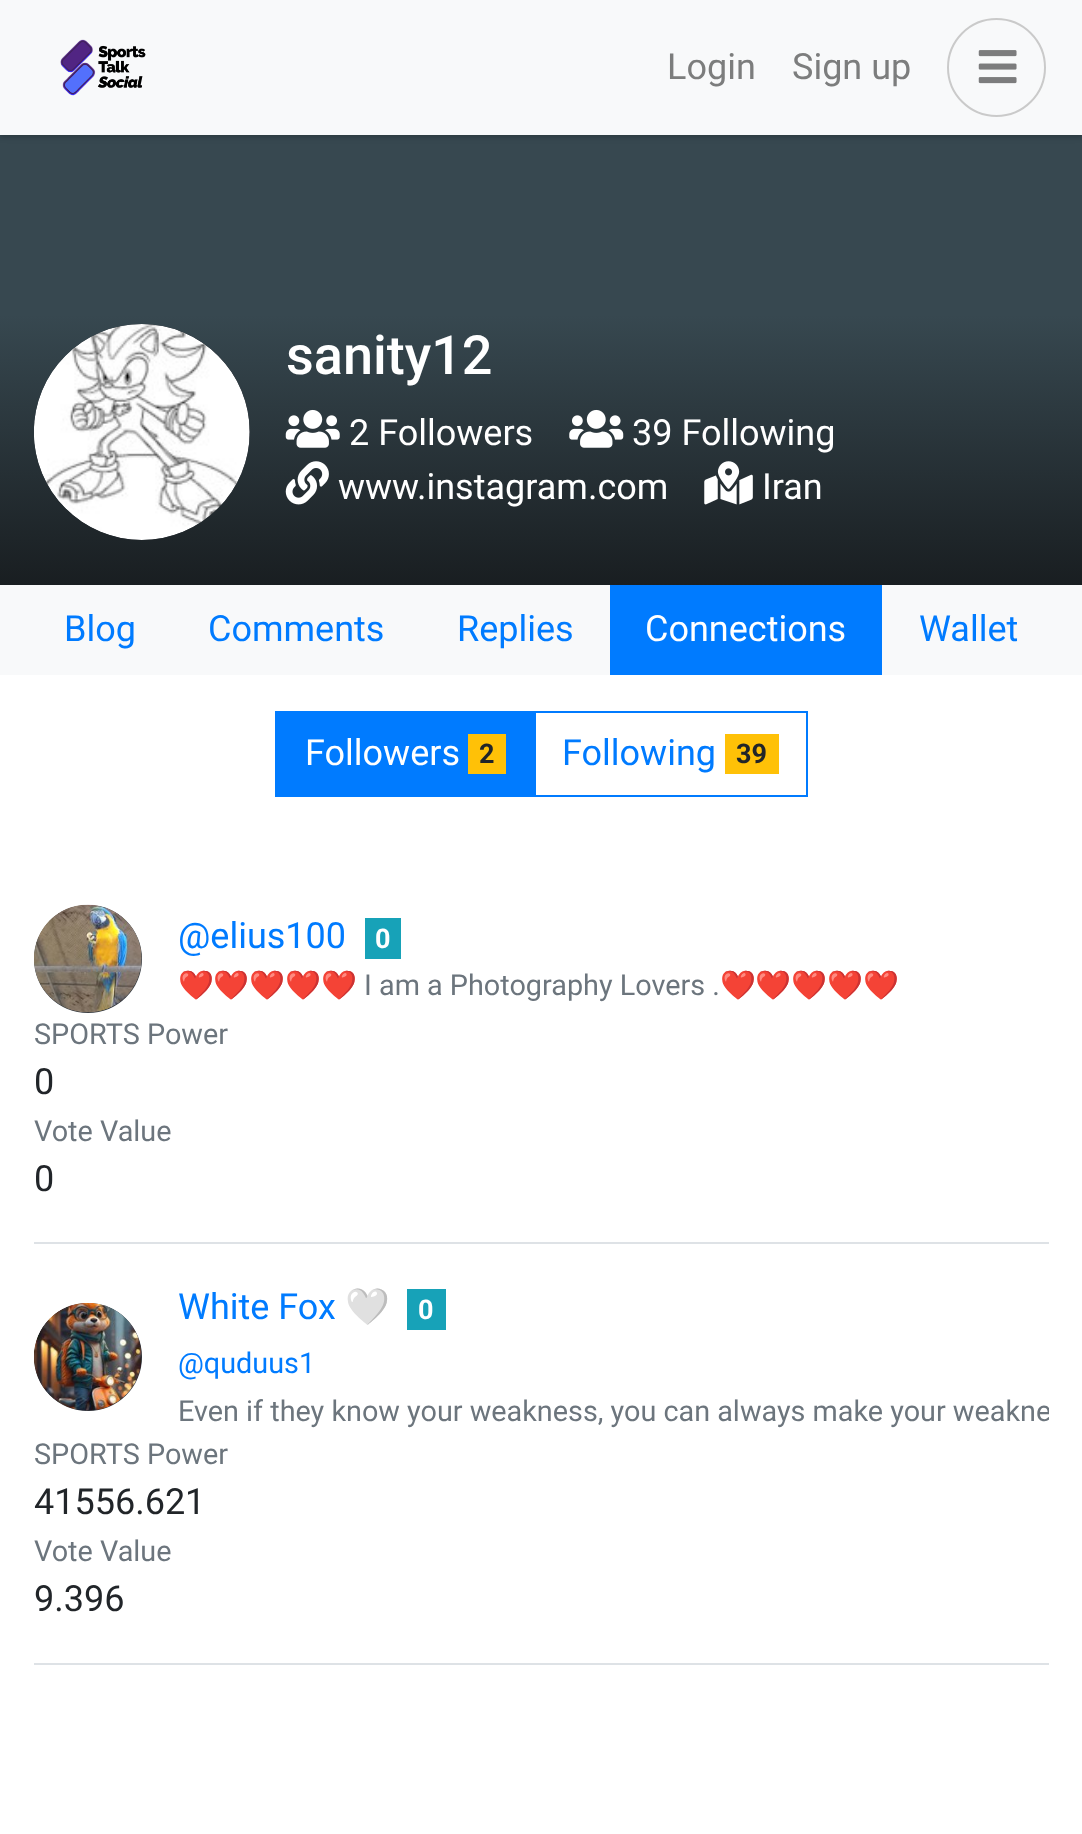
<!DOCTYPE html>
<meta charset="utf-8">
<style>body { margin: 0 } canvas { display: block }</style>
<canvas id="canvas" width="1082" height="1834"></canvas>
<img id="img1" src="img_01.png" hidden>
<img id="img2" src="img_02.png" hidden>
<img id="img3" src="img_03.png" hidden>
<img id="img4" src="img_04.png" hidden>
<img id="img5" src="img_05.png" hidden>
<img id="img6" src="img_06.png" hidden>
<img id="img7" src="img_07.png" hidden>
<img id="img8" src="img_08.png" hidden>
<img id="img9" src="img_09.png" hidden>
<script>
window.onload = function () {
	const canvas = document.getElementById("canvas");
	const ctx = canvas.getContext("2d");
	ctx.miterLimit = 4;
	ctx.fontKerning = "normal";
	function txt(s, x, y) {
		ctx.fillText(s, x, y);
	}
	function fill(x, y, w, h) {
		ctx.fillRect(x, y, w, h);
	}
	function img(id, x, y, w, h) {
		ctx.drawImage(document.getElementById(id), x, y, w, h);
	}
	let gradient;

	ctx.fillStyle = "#FFFFFF";
	fill(0, 0, 1082, 1834);
	gradient = ctx.createLinearGradient(541, 135, 541, 585);
	gradient.addColorStop(0, "#374850");
	gradient.addColorStop(0.4, "#374850");
	gradient.addColorStop(1, "#191E21");
	ctx.fillStyle = gradient;
	fill(0, 135, 1082, 450);
	ctx.fillStyle = "rgba(0, 0, 0, 0.14)";
	ctx.filter = "blur(2px)";
	ctx.beginPath();
	ctx.rect(0, 2, 1082, 135);
	ctx.fill();
	ctx.filter = "none";
	ctx.fillStyle = "rgba(0, 0, 0, 0.07)";
	ctx.filter = "blur(3.5px)";
	ctx.beginPath();
	ctx.rect(0, 2, 1082, 135);
	ctx.fill();
	ctx.filter = "none";
	ctx.fillStyle = "#F8F9FA";
	fill(0, 0, 1082, 135);
	img("img1", 60, 39, 86, 57);
	ctx.beginPath();
	ctx.arc(996.5, 67.5, 48.5, 0, Math.PI * 2);
	ctx.strokeStyle = "#CACACA";
	ctx.lineWidth = 2;
	ctx.stroke();
	img("img2", 978, 50, 39, 34);
	ctx.fillStyle = "#343A40";
	ctx.beginPath();
	ctx.arc(142, 432, 108, 0, Math.PI * 2);
	ctx.fill();
	img("img3", 34, 324, 216, 216);
	img("img4", 285, 409, 55, 39);
	img("img5", 569, 409, 55, 39);
	img("img6", 285, 461, 44, 44);
	img("img7", 704, 461, 49, 44);
	ctx.fillStyle = "#F8F9FA";
	fill(0, 585, 1082, 90);
	ctx.fillStyle = "#007BFF";
	fill(610, 585, 272, 90);
	ctx.strokeStyle = "#007BFF";
	ctx.strokeRect(534, 712, 273, 84);
	fill(275, 711, 261, 86);
	ctx.fillStyle = "#FFC107";
	fill(468, 734, 38, 40);
	fill(725, 734, 54, 40);
	ctx.fillStyle = "#DEE2E6";
	fill(34, 1242, 1015, 2);
	ctx.fillStyle = "#343A40";
	ctx.beginPath();
	ctx.arc(88, 959, 54, 0, Math.PI * 2);
	ctx.fill();
	img("img8", 34, 904, 108, 109);
	ctx.fillStyle = "#17A2B8";
	fill(365, 918, 36, 41);
	ctx.fillStyle = "#DEE2E6";
	fill(34, 1663, 1015, 2);
	ctx.fillStyle = "#343A40";
	ctx.beginPath();
	ctx.arc(88, 1357, 54, 0, Math.PI * 2);
	ctx.fill();
	img("img9", 34, 1303, 108, 108);
	ctx.fillStyle = "#17A2B8";
	fill(407, 1289, 39, 41);
	ctx.font = "36px Roboto";
	ctx.fillStyle = "#7C7D7D";
	txt("Login", 667, 79);
	txt("Sign up", 792, 79);
	ctx.font = "500 54px Roboto";
	ctx.fillStyle = "#FFFFFF";
	txt("sanity12", 286, 374);
	ctx.font = "36px Roboto";
	txt("2 Followers", 349, 445);
	txt("39 Following", 632, 445);
	txt("www.instagram.com", 338, 499);
	txt("Iran", 762, 499);
	ctx.fillStyle = "#007BFF";
	txt("Blog", 64, 641);
	txt("Comments", 208, 641);
	txt("Replies", 457, 641);
	ctx.fillStyle = "#FFFFFF";
	txt("Connections", 645, 641);
	ctx.fillStyle = "#007BFF";
	txt("Wallet", 919, 641);
	ctx.fillStyle = "#FFFFFF";
	txt("Followers", 305, 765);
	ctx.font = "bold 27px Roboto";
	ctx.fillStyle = "#212529";
	txt("2", 479, 763);
	ctx.font = "36px Roboto";
	ctx.fillStyle = "#007BFF";
	txt("Following", 562, 765);
	ctx.font = "bold 27px Roboto";
	ctx.fillStyle = "#212529";
	txt("39", 736, 763);
	ctx.font = "36px Roboto";
	ctx.fillStyle = "#007BFF";
	txt("@elius100", 178, 948);
	ctx.font = "bold 27px Roboto";
	ctx.fillStyle = "#FFFFFF";
	txt("0", 375, 948);
	ctx.save();
	ctx.beginPath();
	ctx.rect(178, 909, 722, 99);
	ctx.clip();
	ctx.font = "28.8px Noto Color Emoji";
	ctx.fillStyle = "#6C757D";
	txt("❤❤❤❤❤", 178, 995);
	ctx.restore();
	ctx.font = "28.8px Roboto";
	ctx.fillStyle = "#6C757D";
	txt("I am a Photography Lovers .", 364, 995);
	ctx.font = "28.8px Noto Color Emoji";
	txt("❤❤❤❤❤", 720, 995);
	ctx.font = "28.8px Roboto";
	txt("SPORTS Power", 34, 1044);
	ctx.font = "36px Roboto";
	ctx.fillStyle = "#212529";
	txt("0", 34, 1094);
	ctx.font = "28.8px Roboto";
	ctx.fillStyle = "#6C757D";
	txt("Vote Value", 34, 1141);
	ctx.font = "36px Roboto";
	ctx.fillStyle = "#212529";
	txt("0", 34, 1191);
	ctx.fillStyle = "#007BFF";
	txt("White Fox", 178, 1319);
	ctx.font = "36px Noto Color Emoji";
	txt("🤍", 345, 1319);
	ctx.font = "28.8px Roboto";
	txt("@quduus1", 178, 1373);
	ctx.font = "bold 27px Roboto";
	ctx.fillStyle = "#FFFFFF";
	txt("0", 418, 1319);
	ctx.save();
	ctx.beginPath();
	ctx.rect(178, 1280, 871, 153);
	ctx.clip();
	ctx.font = "28.8px Roboto";
	ctx.fillStyle = "#6C757D";
	txt("Even if they know your weakness, you can always make your weakne", 178, 1421);
	ctx.restore();
	ctx.font = "28.8px Roboto";
	ctx.fillStyle = "#6C757D";
	txt("SPORTS Power", 34, 1464);
	ctx.font = "36px Roboto";
	ctx.fillStyle = "#212529";
	txt("41556.621", 34, 1514);
	ctx.font = "28.8px Roboto";
	ctx.fillStyle = "#6C757D";
	txt("Vote Value", 34, 1561);
	ctx.font = "36px Roboto";
	ctx.fillStyle = "#212529";
	txt("9.396", 34, 1611);
};
</script>
